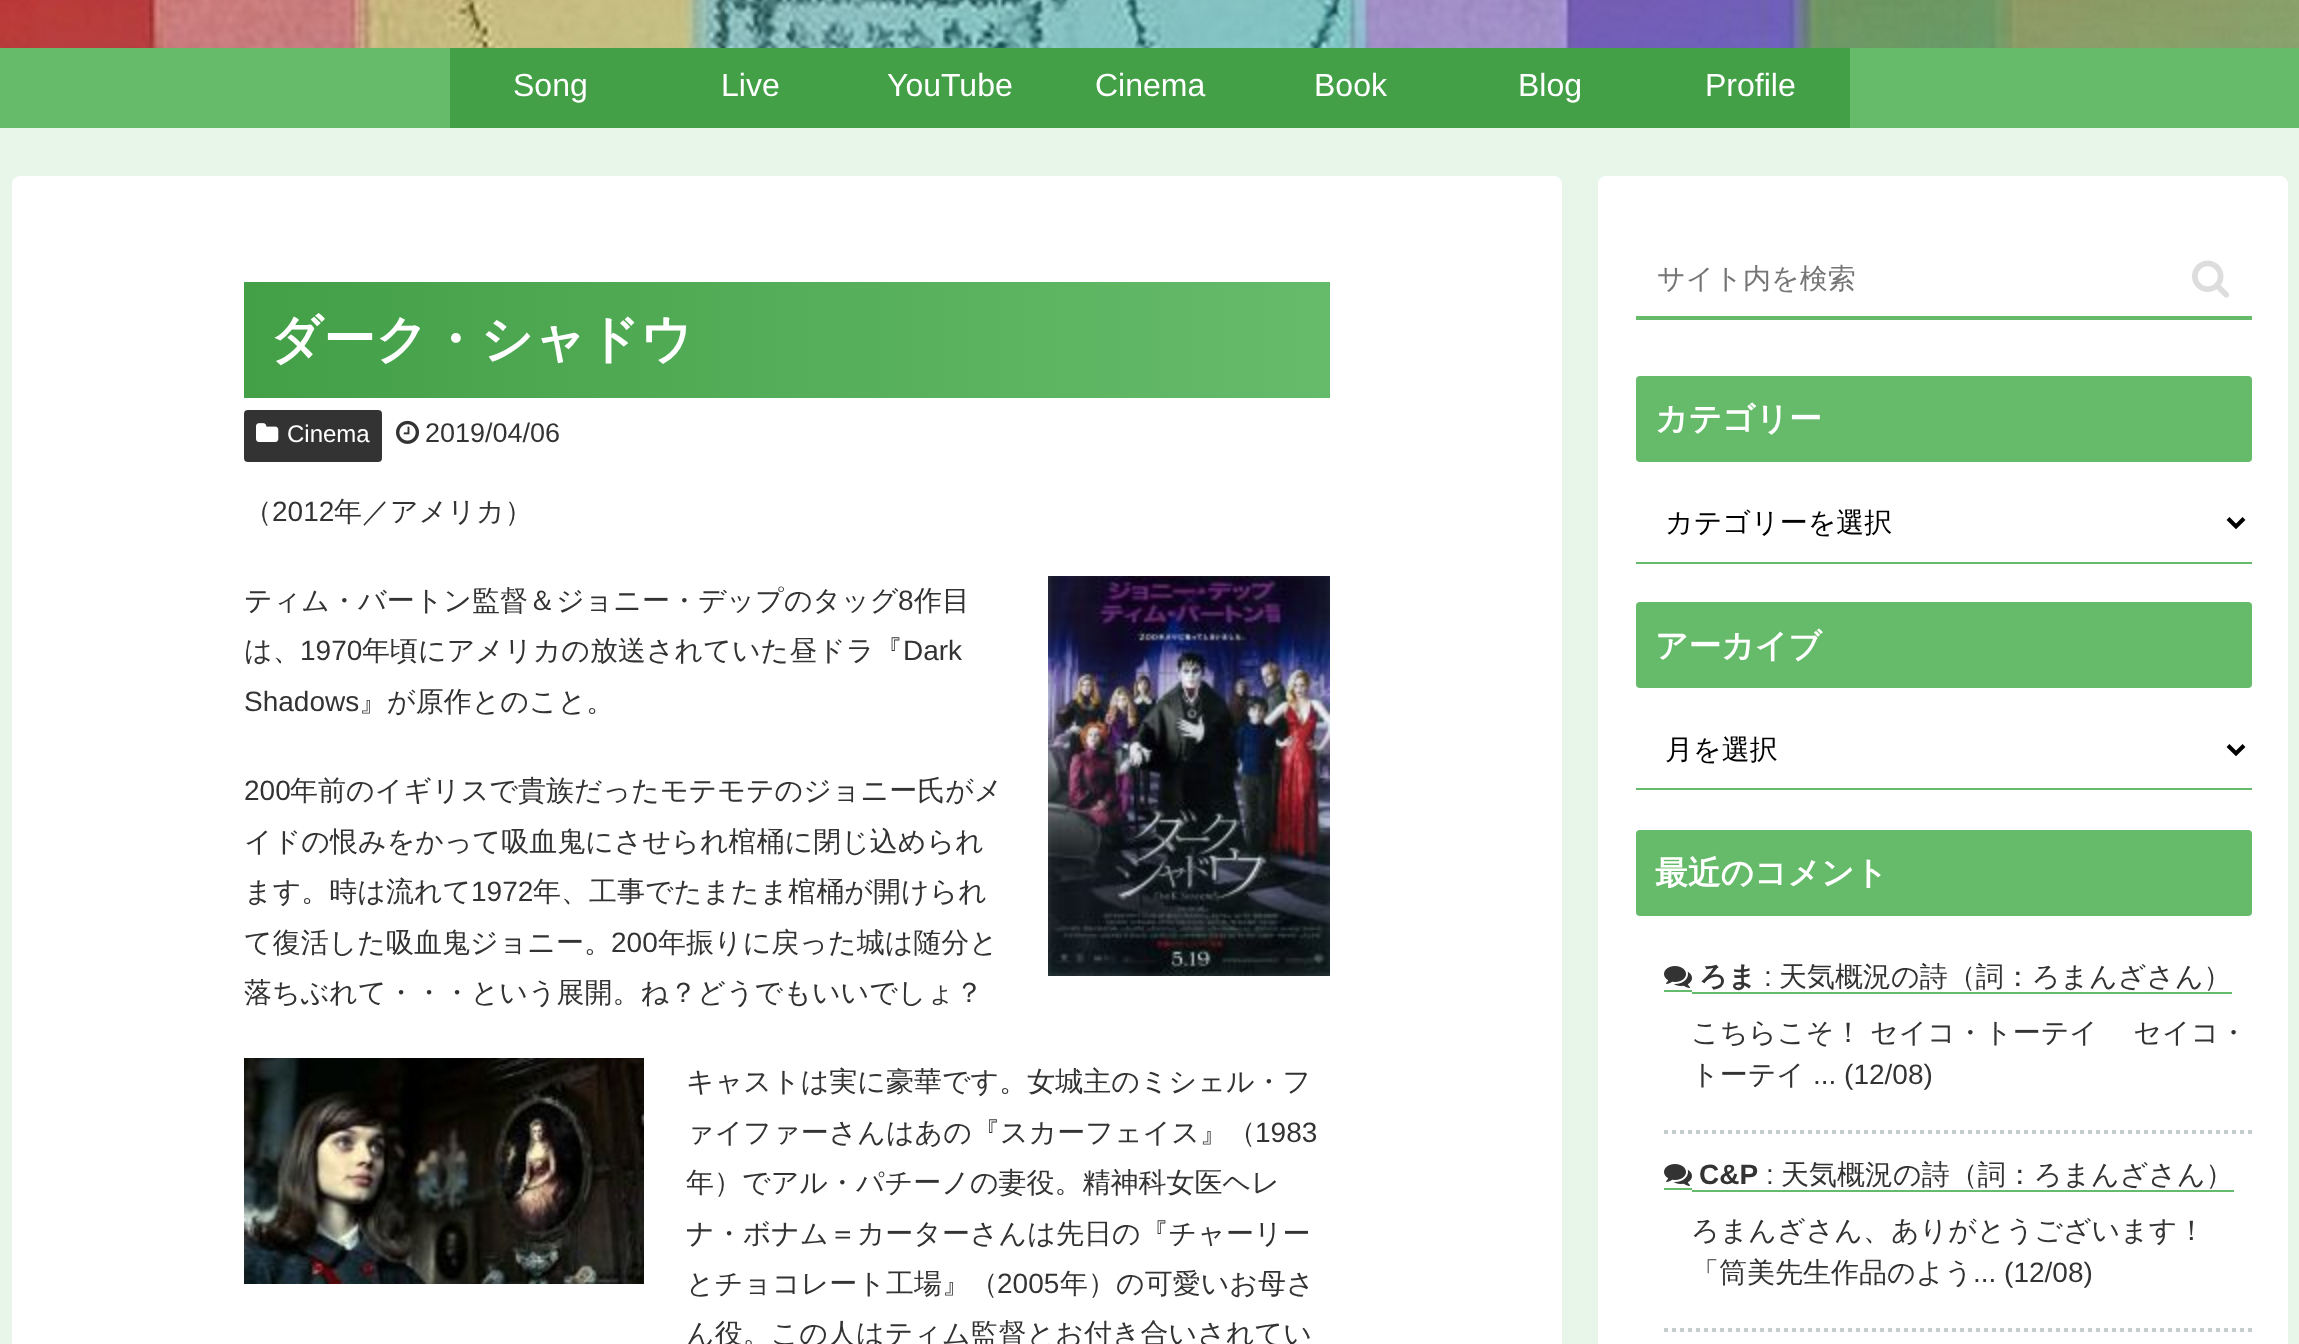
<!DOCTYPE html>
<meta charset="utf-8">
<style>body { margin: 0 } canvas { display: block }</style>
<canvas id="canvas" width="2299" height="1344"></canvas>
<img id="img1" src="img_01.png" hidden>
<img id="img2" src="img_02.png" hidden>
<img id="img3" src="img_03.png" hidden>
<img id="img4" src="img_04.png" hidden>
<img id="img5" src="img_05.png" hidden>
<img id="img6" src="img_06.png" hidden>
<img id="img7" src="img_07.png" hidden>
<script>
window.onload = function () {
	const canvas = document.getElementById("canvas");
	const ctx = canvas.getContext("2d");
	ctx.miterLimit = 4;
	ctx.fontKerning = "normal";
	function txt(s, x, y) {
		ctx.fillText(s, x, y);
	}
	function fill(x, y, w, h) {
		ctx.fillRect(x, y, w, h);
	}
	function round(x, y, w, h, r) {
		ctx.beginPath();
		ctx.roundRect(x, y, w, h, r);
		ctx.fill();
	}
	function img(id, x, y, w, h) {
		ctx.drawImage(document.getElementById(id), x, y, w, h);
	}
	let gradient;

	ctx.fillStyle = "#E8F5E9";
	fill(0, 0, 2299, 1344);
	ctx.fillStyle = "#66BB6A";
	fill(0, 48, 2299, 80);
	img("img1", 0, 0, 2299, 48);
	ctx.fillStyle = "#43A047";
	fill(450, 48, 1400, 80);
	ctx.fillStyle = "#FFFFFF";
	round(12, 176, 1550, 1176, 8);
	gradient = ctx.createLinearGradient(244, 340, 1330, 340);
	gradient.addColorStop(0, "#43A047");
	gradient.addColorStop(1, "#66BB6A");
	ctx.fillStyle = gradient;
	fill(244, 282, 1086, 116);
	ctx.fillStyle = "#333333";
	round(244, 410, 138, 52, 4);
	img("img2", 256, 423, 23, 19);
	img("img3", 396, 420, 23, 24);
	img("img4", 1048, 576, 282, 400);
	img("img5", 244, 1058, 400, 226);
	ctx.fillStyle = "#FFFFFF";
	round(1598, 176, 690, 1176, 8);
	ctx.fillStyle = "#66BB6A";
	fill(1636, 316, 616, 4);
	img("img6", 2192, 260, 37, 38);
	round(1636, 376, 616, 86, 4);
	fill(1636, 562, 616, 2);
	ctx.beginPath();
	ctx.moveTo(2228, 518.5);
	ctx.lineTo(2236, 526.5);
	ctx.lineTo(2244, 518.5);
	ctx.strokeStyle = "#000000";
	ctx.lineWidth = 4;
	ctx.stroke();
	round(1636, 602, 616, 86, 4);
	fill(1636, 788, 616, 2);
	ctx.beginPath();
	ctx.moveTo(2228, 745.5);
	ctx.lineTo(2236, 753.5);
	ctx.lineTo(2244, 745.5);
	ctx.stroke();
	round(1636, 830, 616, 86, 4);
	ctx.beginPath();
	ctx.moveTo(1664, 1132);
	ctx.lineTo(2252, 1132);
	ctx.strokeStyle = "#C3CDCE";
	ctx.setLineDash([4, 4]);
	ctx.stroke();
	fill(1664, 990, 28, 2);
	fill(1692, 992, 540, 2);
	img("img7", 1664, 966, 28, 22);
	ctx.beginPath();
	ctx.moveTo(1664, 1330);
	ctx.lineTo(2252, 1330);
	ctx.stroke();
	fill(1664, 1188, 28, 2);
	fill(1692, 1190, 542, 2);
	img("img7", 1664, 1164, 28, 22);
	ctx.font = "32px Liberation Sans";
	ctx.fillStyle = "#FFFFFF";
	txt("Song", 513, 96);
	txt("Live", 721, 96);
	txt("YouTube", 887, 96);
	txt("Cinema", 1095, 96);
	txt("Book", 1314, 96);
	txt("Blog", 1518, 96);
	txt("Profile", 1705, 96);
	ctx.font = "bold 52px WenQuanYi Zen Hei";
	txt("ダーク・シャドウ", 270, 357);
	ctx.font = "24px Liberation Sans";
	txt("Cinema", 287, 442);
	ctx.font = "27px Liberation Sans";
	ctx.fillStyle = "#333333";
	txt("2019/04/06", 425, 442);
	ctx.font = "500 28px WenQuanYi Zen Hei";
	txt("（", 244, 521);
	ctx.font = "28px Liberation Sans";
	txt("2012", 272, 521);
	ctx.font = "500 28px WenQuanYi Zen Hei";
	txt("年／アメリカ）", 334, 521);
	txt("ティム・バートン監督＆ジョニー・デップのタッグ", 244, 610);
	ctx.font = "28px Liberation Sans";
	txt("8", 898, 610);
	ctx.font = "500 28px WenQuanYi Zen Hei";
	txt("作目", 914, 610);
	txt("は、", 244, 660);
	ctx.font = "28px Liberation Sans";
	txt("1970", 300, 660);
	ctx.font = "500 28px WenQuanYi Zen Hei";
	txt("年頃にアメリカの放送されていた昼ドラ『", 362, 660);
	ctx.font = "28px Liberation Sans";
	txt("Dark", 903, 660);
	txt("Shadows", 244, 711);
	ctx.font = "500 28px WenQuanYi Zen Hei";
	txt("』が原作とのこと。", 359, 711);
	ctx.font = "28px Liberation Sans";
	txt("200", 244, 800);
	ctx.font = "500 28px WenQuanYi Zen Hei";
	txt("年前のイギリスで貴族だったモテモテのジョニー氏がメ", 290, 800);
	txt("イドの恨みをかって吸血鬼にさせられ棺桶に閉じ込められ", 244, 851);
	txt("ます。時は流れて", 244, 901);
	ctx.font = "28px Liberation Sans";
	txt("1972", 471, 901);
	ctx.font = "500 28px WenQuanYi Zen Hei";
	txt("年、工事でたまたま棺桶が開けられ", 533, 901);
	txt("て復活した吸血鬼ジョニー。", 244, 952);
	ctx.font = "28px Liberation Sans";
	txt("200", 611, 952);
	ctx.font = "500 28px WenQuanYi Zen Hei";
	txt("年振りに戻った城は随分と", 658, 952);
	txt("落ちぶれて・・・という展開。ね？どうでもいいでしょ？", 244, 1002);
	txt("キャストは実に豪華です。女城主のミシェル・フ", 686, 1091);
	txt("ァイファーさんはあの『スカーフェイス』（", 686, 1142);
	ctx.font = "28px Liberation Sans";
	txt("1983", 1255, 1142);
	ctx.font = "500 28px WenQuanYi Zen Hei";
	txt("年）でアル・パチーノの妻役。精神科女医ヘレ", 686, 1192);
	txt("ナ・ボナム＝カーターさんは先日の『チャーリー", 686, 1243);
	txt("とチョコレート工場』（", 686, 1293);
	ctx.font = "28px Liberation Sans";
	txt("2005", 997, 1293);
	ctx.font = "500 28px WenQuanYi Zen Hei";
	txt("年）の可愛いお母さ", 1060, 1293);
	txt("ん役。この人はティム監督とお付き合いされてい", 686, 1343);
	ctx.fillStyle = "#757575";
	txt("サイト内を検索", 1657, 288);
	ctx.font = "bold 32.75px WenQuanYi Zen Hei";
	ctx.fillStyle = "#FFFFFF";
	txt("カテゴリー", 1655, 430);
	ctx.font = "500 28px WenQuanYi Zen Hei";
	ctx.fillStyle = "#000000";
	txt("カテゴリーを選択", 1665, 532);
	ctx.font = "bold 32.75px WenQuanYi Zen Hei";
	ctx.fillStyle = "#FFFFFF";
	txt("アーカイブ", 1655, 657);
	ctx.font = "500 28px WenQuanYi Zen Hei";
	ctx.fillStyle = "#000000";
	txt("月を選択", 1665, 759);
	ctx.font = "bold 32.75px WenQuanYi Zen Hei";
	ctx.fillStyle = "#FFFFFF";
	txt("最近のコメント", 1655, 884);
	ctx.font = "bold 28px WenQuanYi Zen Hei";
	ctx.fillStyle = "#333333";
	txt("ろま", 1699, 986);
	ctx.font = "28px Liberation Sans";
	txt(":", 1764, 986);
	ctx.font = "500 28px WenQuanYi Zen Hei";
	txt("天気概況の詩（詞：ろまんざさん）", 1779, 986);
	txt("こちらこそ！", 1691, 1042);
	ctx.wordSpacing = "-1px";
	txt("セイコ・トーテイ 　セイコ・", 1870, 1042);
	ctx.wordSpacing = "0px";
	txt("トーテイ", 1691, 1084);
	ctx.font = "28px Liberation Sans";
	txt("... (12/08)", 1813, 1084);
	ctx.font = "bold 28px Liberation Sans";
	txt("C&P", 1699, 1184);
	ctx.font = "28px Liberation Sans";
	txt(":", 1766, 1184);
	ctx.font = "500 28px WenQuanYi Zen Hei";
	txt("天気概況の詩（詞：ろまんざさん）", 1781, 1184);
	txt("ろまんざさん、ありがとうございます！", 1691, 1240);
	txt("「筒美先生作品のよう", 1691, 1282);
	ctx.font = "28px Liberation Sans";
	txt("... (12/08)", 1973, 1282);
};
</script>
